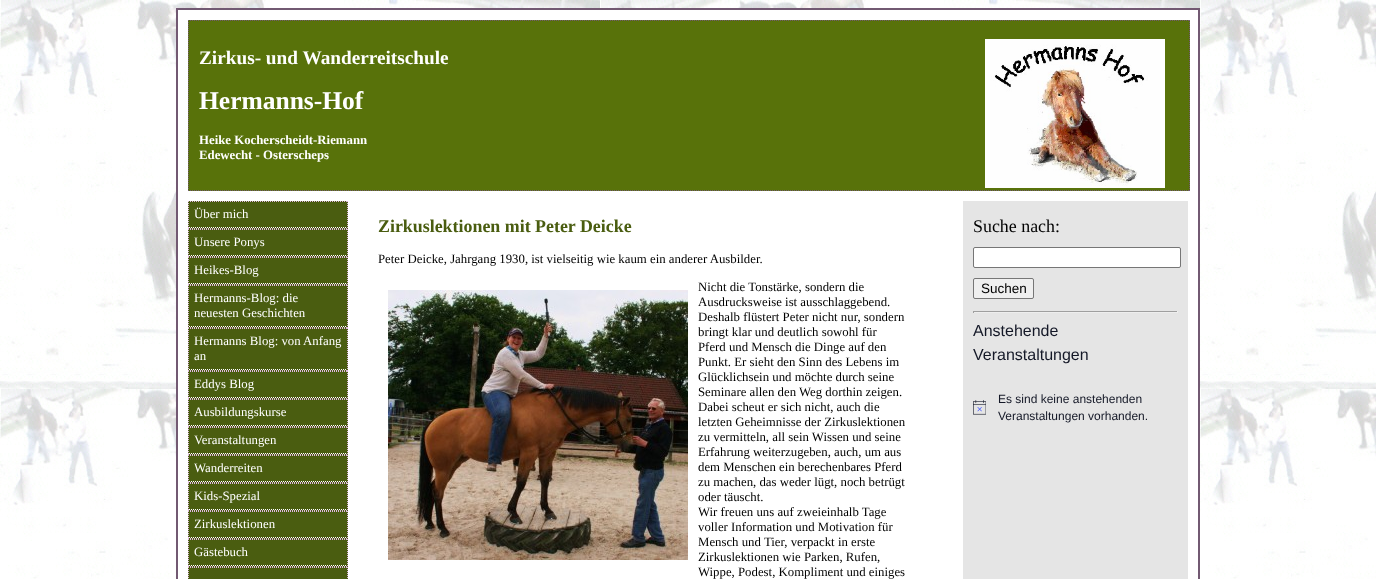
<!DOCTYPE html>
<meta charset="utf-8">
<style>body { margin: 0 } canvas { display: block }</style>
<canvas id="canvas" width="1376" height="579"></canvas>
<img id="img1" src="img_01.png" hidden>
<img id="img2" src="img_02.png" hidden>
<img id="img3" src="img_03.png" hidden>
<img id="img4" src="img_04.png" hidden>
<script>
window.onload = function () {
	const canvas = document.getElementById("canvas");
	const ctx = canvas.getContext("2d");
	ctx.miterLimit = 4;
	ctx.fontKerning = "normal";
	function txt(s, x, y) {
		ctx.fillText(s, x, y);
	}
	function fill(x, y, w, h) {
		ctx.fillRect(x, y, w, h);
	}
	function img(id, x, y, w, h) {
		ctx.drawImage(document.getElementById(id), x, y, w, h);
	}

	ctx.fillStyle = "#FFFFFF";
	fill(0, 0, 1376, 579);
	img("img1", 0, 0, 1376, 579);
	ctx.beginPath();
	ctx.rect(177, 9, 1022, 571);
	ctx.fill();
	ctx.strokeStyle = "#725972";
	ctx.lineWidth = 2;
	ctx.stroke();
	ctx.fillStyle = "#58720A";
	fill(188, 20, 1002, 171);
	ctx.beginPath();
	ctx.moveTo(188, 20.5);
	ctx.lineTo(1190, 20.5);
	ctx.lineWidth = 1;
	ctx.setLineDash([1, 1]);
	ctx.stroke();
	ctx.beginPath();
	ctx.moveTo(1189.5, 20);
	ctx.lineTo(1189.5, 191);
	ctx.stroke();
	ctx.beginPath();
	ctx.moveTo(188, 190.5);
	ctx.lineTo(1190, 190.5);
	ctx.stroke();
	ctx.beginPath();
	ctx.moveTo(188.5, 20);
	ctx.lineTo(188.5, 191);
	ctx.stroke();
	img("img2", 985, 39, 180, 149);
	ctx.fillStyle = "#4A5D10";
	fill(188, 201, 160, 378);
	ctx.beginPath();
	ctx.moveTo(188, 201.5);
	ctx.lineTo(348, 201.5);
	ctx.strokeStyle = "#DFB8DF";
	ctx.stroke();
	ctx.beginPath();
	ctx.moveTo(347.5, 201);
	ctx.lineTo(347.5, 229);
	ctx.stroke();
	ctx.beginPath();
	ctx.moveTo(188, 228.5);
	ctx.lineTo(348, 228.5);
	ctx.stroke();
	ctx.beginPath();
	ctx.moveTo(188.5, 201);
	ctx.lineTo(188.5, 229);
	ctx.stroke();
	ctx.beginPath();
	ctx.moveTo(189, 227.5);
	ctx.lineTo(347, 227.5);
	ctx.strokeStyle = "#FFFFFF";
	ctx.stroke();
	ctx.beginPath();
	ctx.moveTo(188, 229.5);
	ctx.lineTo(348, 229.5);
	ctx.strokeStyle = "#DFB8DF";
	ctx.stroke();
	ctx.beginPath();
	ctx.moveTo(347.5, 229);
	ctx.lineTo(347.5, 257);
	ctx.stroke();
	ctx.beginPath();
	ctx.moveTo(188, 256.5);
	ctx.lineTo(348, 256.5);
	ctx.stroke();
	ctx.beginPath();
	ctx.moveTo(188.5, 229);
	ctx.lineTo(188.5, 257);
	ctx.stroke();
	ctx.beginPath();
	ctx.moveTo(189, 255.5);
	ctx.lineTo(347, 255.5);
	ctx.strokeStyle = "#FFFFFF";
	ctx.stroke();
	ctx.beginPath();
	ctx.moveTo(188, 257.5);
	ctx.lineTo(348, 257.5);
	ctx.strokeStyle = "#DFB8DF";
	ctx.stroke();
	ctx.beginPath();
	ctx.moveTo(347.5, 257);
	ctx.lineTo(347.5, 285);
	ctx.stroke();
	ctx.beginPath();
	ctx.moveTo(188, 284.5);
	ctx.lineTo(348, 284.5);
	ctx.stroke();
	ctx.beginPath();
	ctx.moveTo(188.5, 257);
	ctx.lineTo(188.5, 285);
	ctx.stroke();
	ctx.beginPath();
	ctx.moveTo(189, 283.5);
	ctx.lineTo(347, 283.5);
	ctx.strokeStyle = "#FFFFFF";
	ctx.stroke();
	ctx.beginPath();
	ctx.moveTo(188, 285.5);
	ctx.lineTo(348, 285.5);
	ctx.strokeStyle = "#DFB8DF";
	ctx.stroke();
	ctx.beginPath();
	ctx.moveTo(347.5, 285);
	ctx.lineTo(347.5, 328);
	ctx.stroke();
	ctx.beginPath();
	ctx.moveTo(188, 327.5);
	ctx.lineTo(348, 327.5);
	ctx.stroke();
	ctx.beginPath();
	ctx.moveTo(188.5, 285);
	ctx.lineTo(188.5, 328);
	ctx.stroke();
	ctx.beginPath();
	ctx.moveTo(189, 326.5);
	ctx.lineTo(347, 326.5);
	ctx.strokeStyle = "#FFFFFF";
	ctx.stroke();
	ctx.beginPath();
	ctx.moveTo(188, 328.5);
	ctx.lineTo(348, 328.5);
	ctx.strokeStyle = "#DFB8DF";
	ctx.stroke();
	ctx.beginPath();
	ctx.moveTo(347.5, 328);
	ctx.lineTo(347.5, 371);
	ctx.stroke();
	ctx.beginPath();
	ctx.moveTo(188, 370.5);
	ctx.lineTo(348, 370.5);
	ctx.stroke();
	ctx.beginPath();
	ctx.moveTo(188.5, 328);
	ctx.lineTo(188.5, 371);
	ctx.stroke();
	ctx.beginPath();
	ctx.moveTo(189, 369.5);
	ctx.lineTo(347, 369.5);
	ctx.strokeStyle = "#FFFFFF";
	ctx.stroke();
	ctx.beginPath();
	ctx.moveTo(188, 371.5);
	ctx.lineTo(348, 371.5);
	ctx.strokeStyle = "#DFB8DF";
	ctx.stroke();
	ctx.beginPath();
	ctx.moveTo(347.5, 371);
	ctx.lineTo(347.5, 399);
	ctx.stroke();
	ctx.beginPath();
	ctx.moveTo(188, 398.5);
	ctx.lineTo(348, 398.5);
	ctx.stroke();
	ctx.beginPath();
	ctx.moveTo(188.5, 371);
	ctx.lineTo(188.5, 399);
	ctx.stroke();
	ctx.beginPath();
	ctx.moveTo(189, 397.5);
	ctx.lineTo(347, 397.5);
	ctx.strokeStyle = "#FFFFFF";
	ctx.stroke();
	ctx.beginPath();
	ctx.moveTo(188, 399.5);
	ctx.lineTo(348, 399.5);
	ctx.strokeStyle = "#DFB8DF";
	ctx.stroke();
	ctx.beginPath();
	ctx.moveTo(347.5, 399);
	ctx.lineTo(347.5, 427);
	ctx.stroke();
	ctx.beginPath();
	ctx.moveTo(188, 426.5);
	ctx.lineTo(348, 426.5);
	ctx.stroke();
	ctx.beginPath();
	ctx.moveTo(188.5, 399);
	ctx.lineTo(188.5, 427);
	ctx.stroke();
	ctx.beginPath();
	ctx.moveTo(189, 425.5);
	ctx.lineTo(347, 425.5);
	ctx.strokeStyle = "#FFFFFF";
	ctx.stroke();
	ctx.beginPath();
	ctx.moveTo(188, 427.5);
	ctx.lineTo(348, 427.5);
	ctx.strokeStyle = "#DFB8DF";
	ctx.stroke();
	ctx.beginPath();
	ctx.moveTo(347.5, 427);
	ctx.lineTo(347.5, 455);
	ctx.stroke();
	ctx.beginPath();
	ctx.moveTo(188, 454.5);
	ctx.lineTo(348, 454.5);
	ctx.stroke();
	ctx.beginPath();
	ctx.moveTo(188.5, 427);
	ctx.lineTo(188.5, 455);
	ctx.stroke();
	ctx.beginPath();
	ctx.moveTo(189, 453.5);
	ctx.lineTo(347, 453.5);
	ctx.strokeStyle = "#FFFFFF";
	ctx.stroke();
	ctx.beginPath();
	ctx.moveTo(188, 455.5);
	ctx.lineTo(348, 455.5);
	ctx.strokeStyle = "#DFB8DF";
	ctx.stroke();
	ctx.beginPath();
	ctx.moveTo(347.5, 455);
	ctx.lineTo(347.5, 483);
	ctx.stroke();
	ctx.beginPath();
	ctx.moveTo(188, 482.5);
	ctx.lineTo(348, 482.5);
	ctx.stroke();
	ctx.beginPath();
	ctx.moveTo(188.5, 455);
	ctx.lineTo(188.5, 483);
	ctx.stroke();
	ctx.beginPath();
	ctx.moveTo(189, 481.5);
	ctx.lineTo(347, 481.5);
	ctx.strokeStyle = "#FFFFFF";
	ctx.stroke();
	ctx.beginPath();
	ctx.moveTo(188, 483.5);
	ctx.lineTo(348, 483.5);
	ctx.strokeStyle = "#DFB8DF";
	ctx.stroke();
	ctx.beginPath();
	ctx.moveTo(347.5, 483);
	ctx.lineTo(347.5, 511);
	ctx.stroke();
	ctx.beginPath();
	ctx.moveTo(188, 510.5);
	ctx.lineTo(348, 510.5);
	ctx.stroke();
	ctx.beginPath();
	ctx.moveTo(188.5, 483);
	ctx.lineTo(188.5, 511);
	ctx.stroke();
	ctx.beginPath();
	ctx.moveTo(189, 509.5);
	ctx.lineTo(347, 509.5);
	ctx.strokeStyle = "#FFFFFF";
	ctx.stroke();
	ctx.beginPath();
	ctx.moveTo(188, 511.5);
	ctx.lineTo(348, 511.5);
	ctx.strokeStyle = "#DFB8DF";
	ctx.stroke();
	ctx.beginPath();
	ctx.moveTo(347.5, 511);
	ctx.lineTo(347.5, 539);
	ctx.stroke();
	ctx.beginPath();
	ctx.moveTo(188, 538.5);
	ctx.lineTo(348, 538.5);
	ctx.stroke();
	ctx.beginPath();
	ctx.moveTo(188.5, 511);
	ctx.lineTo(188.5, 539);
	ctx.stroke();
	ctx.beginPath();
	ctx.moveTo(189, 537.5);
	ctx.lineTo(347, 537.5);
	ctx.strokeStyle = "#FFFFFF";
	ctx.stroke();
	ctx.beginPath();
	ctx.moveTo(188, 539.5);
	ctx.lineTo(348, 539.5);
	ctx.strokeStyle = "#DFB8DF";
	ctx.stroke();
	ctx.beginPath();
	ctx.moveTo(347.5, 539);
	ctx.lineTo(347.5, 567);
	ctx.stroke();
	ctx.beginPath();
	ctx.moveTo(188, 566.5);
	ctx.lineTo(348, 566.5);
	ctx.stroke();
	ctx.beginPath();
	ctx.moveTo(188.5, 539);
	ctx.lineTo(188.5, 567);
	ctx.stroke();
	ctx.beginPath();
	ctx.moveTo(189, 565.5);
	ctx.lineTo(347, 565.5);
	ctx.strokeStyle = "#FFFFFF";
	ctx.stroke();
	ctx.beginPath();
	ctx.moveTo(188, 567.5);
	ctx.lineTo(348, 567.5);
	ctx.strokeStyle = "#DFB8DF";
	ctx.stroke();
	ctx.beginPath();
	ctx.moveTo(347.5, 567);
	ctx.lineTo(347.5, 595);
	ctx.stroke();
	ctx.beginPath();
	ctx.moveTo(188.5, 567);
	ctx.lineTo(188.5, 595);
	ctx.stroke();
	img("img3", 388, 290, 300, 270);
	ctx.fillStyle = "#E5E5E5";
	fill(963, 201, 225, 378);
	ctx.fillStyle = "#FFFFFF";
	ctx.beginPath();
	ctx.roundRect(973.5, 247.5, 207, 20, 1.5);
	ctx.fill();
	ctx.strokeStyle = "#767676";
	ctx.setLineDash([]);
	ctx.stroke();
	ctx.fillStyle = "#EFEFEF";
	ctx.beginPath();
	ctx.roundRect(973.5, 278.5, 60, 20, 1.5);
	ctx.fill();
	ctx.stroke();
	ctx.fillStyle = "#9F9F9F";
	fill(973, 311, 205, 1);
	ctx.fillStyle = "#EEEEEE";
	fill(1177, 311, 1, 2);
	fill(973, 312, 205, 1);
	ctx.fillStyle = "#9F9F9F";
	fill(973, 311, 1, 2);
	img("img4", 973, 400, 13, 15);
	ctx.font = "bold 19.25px Liberation Serif";
	ctx.fillStyle = "#FFFFFF";
	txt("Zirkus- und Wanderreitschule", 199, 64);
	ctx.font = "bold 25.5px Liberation Serif";
	txt("Hermanns-Hof", 199, 109);
	ctx.font = "bold 12.8px Liberation Serif";
	txt("Heike Kocherscheidt-Riemann", 199, 144);
	txt("Edewecht - Osterscheps", 199, 159);
	ctx.font = "12.8px Liberation Serif";
	txt("Über mich", 194, 218);
	txt("Unsere Ponys", 194, 246);
	txt("Heikes-Blog", 194, 274);
	txt("Hermanns-Blog: die", 194, 302);
	txt("neuesten Geschichten", 194, 317);
	txt("Hermanns Blog: von Anfang", 194, 345);
	txt("an", 194, 360);
	txt("Eddys Blog", 194, 388);
	txt("Ausbildungskurse", 194, 416);
	txt("Veranstaltungen", 194, 444);
	txt("Wanderreiten", 194, 472);
	txt("Kids-Spezial", 194, 500);
	txt("Zirkuslektionen", 194, 528);
	txt("Gästebuch", 194, 556);
	ctx.font = "bold 17.9px Liberation Serif";
	ctx.fillStyle = "#4A5D10";
	txt("Zirkuslektionen mit Peter Deicke", 378, 232);
	ctx.font = "12.8px Liberation Serif";
	ctx.fillStyle = "#000000";
	txt("Peter Deicke, Jahrgang 1930, ist vielseitig wie kaum ein anderer Ausbilder.", 378, 263);
	txt("Nicht die Tonstärke, sondern die", 698, 291);
	txt("Ausdrucksweise ist ausschlaggebend.", 698, 306);
	txt("Deshalb flüstert Peter nicht nur, sondern", 698, 321);
	txt("bringt klar und deutlich sowohl für", 698, 336);
	txt("Pferd und Mensch die Dinge auf den", 698, 351);
	txt("Punkt. Er sieht den Sinn des Lebens im", 698, 366);
	txt("Glücklichsein und möchte durch seine", 698, 381);
	txt("Seminare allen den Weg dorthin zeigen.", 698, 396);
	txt("Dabei scheut er sich nicht, auch die", 698, 411);
	txt("letzten Geheimnisse der Zirkuslektionen", 698, 426);
	txt("zu vermitteln, all sein Wissen und seine", 698, 441);
	txt("Erfahrung weiterzugeben, auch, um aus", 698, 456);
	txt("dem Menschen ein berechenbares Pferd", 698, 471);
	txt("zu machen, das weder lügt, noch betrügt", 698, 486);
	txt("oder täuscht.", 698, 501);
	txt("Wir freuen uns auf zweieinhalb Tage", 698, 516);
	txt("voller Information und Motivation für", 698, 531);
	txt("Mensch und Tier, verpackt in erste", 698, 546);
	txt("Zirkuslektionen wie Parken, Rufen,", 698, 561);
	txt("Wippe, Podest, Kompliment und einiges", 698, 576);
	ctx.font = "17.9px Liberation Serif";
	txt("Suche nach:", 973, 232);
	ctx.font = "13.5px Liberation Sans";
	txt("Suchen", 981, 293);
	ctx.font = "16px Liberation Sans";
	ctx.fillStyle = "#141827";
	txt("Anstehende", 973, 336);
	txt("Veranstaltungen", 973, 360);
	ctx.font = "12px Liberation Sans";
	txt("Es sind keine anstehenden", 998, 403);
	txt("Veranstaltungen vorhanden.", 998, 420);
};
</script>
